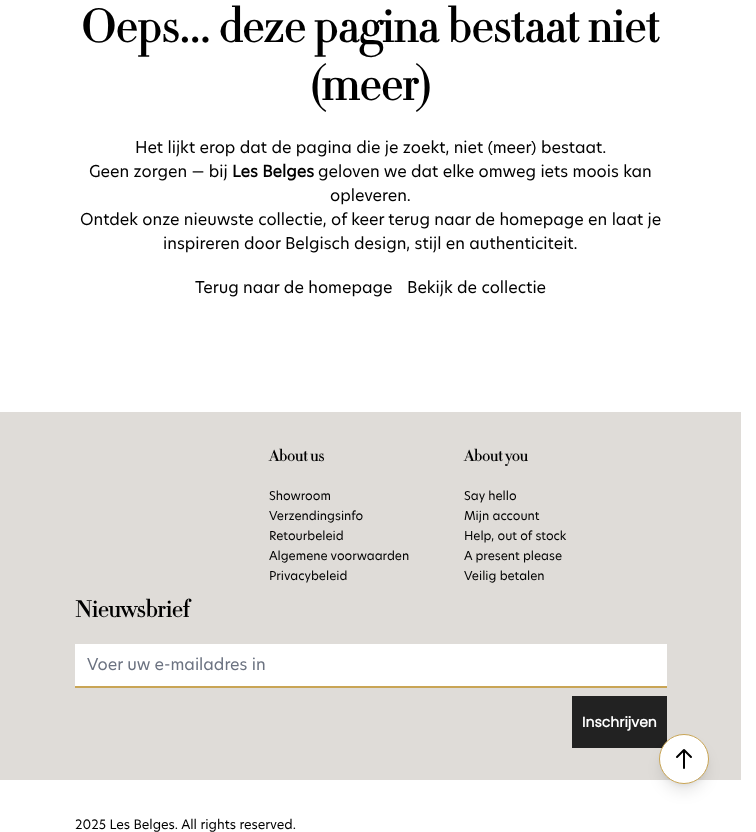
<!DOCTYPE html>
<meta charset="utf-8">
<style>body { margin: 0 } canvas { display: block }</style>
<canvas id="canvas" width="756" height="832"></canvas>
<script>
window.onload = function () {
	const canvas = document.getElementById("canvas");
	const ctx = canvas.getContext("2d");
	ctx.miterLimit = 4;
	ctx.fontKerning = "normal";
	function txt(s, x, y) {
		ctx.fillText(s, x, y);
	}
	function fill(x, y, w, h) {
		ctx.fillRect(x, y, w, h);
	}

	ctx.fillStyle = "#FFFFFF";
	fill(0, 0, 756, 832);
	ctx.fillStyle = "#DFDCD8";
	fill(0, 412, 741, 368);
	ctx.fillStyle = "#FFFFFF";
	fill(75, 644, 592, 42);
	ctx.fillStyle = "#C9A555";
	fill(75, 686, 592, 2);
	ctx.fillStyle = "#222222";
	fill(572, 696, 95, 52);
	ctx.fillStyle = "rgba(0, 0, 0, 0.1)";
	ctx.filter = "blur(3px)";
	ctx.beginPath();
	ctx.roundRect(663, 742, 42, 42, 21);
	ctx.fill();
	ctx.filter = "none";
	ctx.filter = "blur(7.5px)";
	ctx.beginPath();
	ctx.roundRect(662, 747, 44, 44, 22);
	ctx.fill();
	ctx.filter = "none";
	ctx.fillStyle = "#FFFFFF";
	ctx.beginPath();
	ctx.arc(684, 759, 24.5, 0, Math.PI * 2);
	ctx.fill();
	ctx.strokeStyle = "#C9A555";
	ctx.stroke();
	ctx.beginPath();
	ctx.moveTo(677, 757);
	ctx.lineTo(684, 750);
	ctx.moveTo(684, 750);
	ctx.lineTo(691, 757);
	ctx.moveTo(684, 750);
	ctx.lineTo(684, 768);
	ctx.strokeStyle = "#000000";
	ctx.lineWidth = 2;
	ctx.lineCap = "round";
	ctx.lineJoin = "round";
	ctx.stroke();
	ctx.font = "italic bold 48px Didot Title";
	ctx.fillStyle = "#000000";
	txt("Oeps… deze pagina bestaat niet", 81, 42);
	txt("(meer)", 309, 100);
	ctx.font = "16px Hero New";
	txt("Het lijkt erop dat de pagina die je zoekt, niet (meer) bestaat.", 135, 153);
	txt("Geen zorgen — bij", 89, 177);
	ctx.font = "bold 16px Hero New";
	txt("Les Belges", 232, 177);
	ctx.font = "16px Hero New";
	txt("geloven we dat elke omweg iets moois kan", 318, 177);
	txt("opleveren.", 330, 201);
	txt("Ontdek onze nieuwste collectie, of keer terug naar de homepage en laat je", 80, 225);
	txt("inspireren door Belgisch design, stijl en authenticiteit.", 163, 249);
	txt("Terug naar de homepage", 195, 293);
	txt("Bekijk de collectie", 407, 293);
	ctx.font = "italic bold 16px Didot Title";
	txt("About us", 269, 461);
	ctx.font = "12px Hero New";
	txt("Showroom", 269, 500);
	txt("Verzendingsinfo", 269, 520);
	txt("Retourbeleid", 269, 540);
	txt("Algemene voorwaarden", 269, 560);
	txt("Privacybeleid", 269, 580);
	ctx.font = "italic bold 16px Didot Title";
	txt("About you", 464, 461);
	ctx.font = "12px Hero New";
	txt("Say hello", 464, 500);
	txt("Mijn account", 464, 520);
	txt("Help, out of stock", 464, 540);
	txt("A present please", 464, 560);
	txt("Veilig betalen", 464, 580);
	ctx.font = "italic bold 24px Didot Title";
	txt("Nieuwsbrief", 75, 617);
	ctx.font = "16px Hero New";
	ctx.fillStyle = "#6B7280";
	txt("Voer uw e-mailadres in", 87, 670);
	ctx.font = "bold 14px Poppins";
	ctx.fillStyle = "#FFFFFF";
	txt("Inschrijven", 582, 727);
	ctx.font = "12.75px Hero New";
	ctx.fillStyle = "#000000";
	txt("2025 Les Belges. All rights reserved.", 75, 829);
};
</script>
